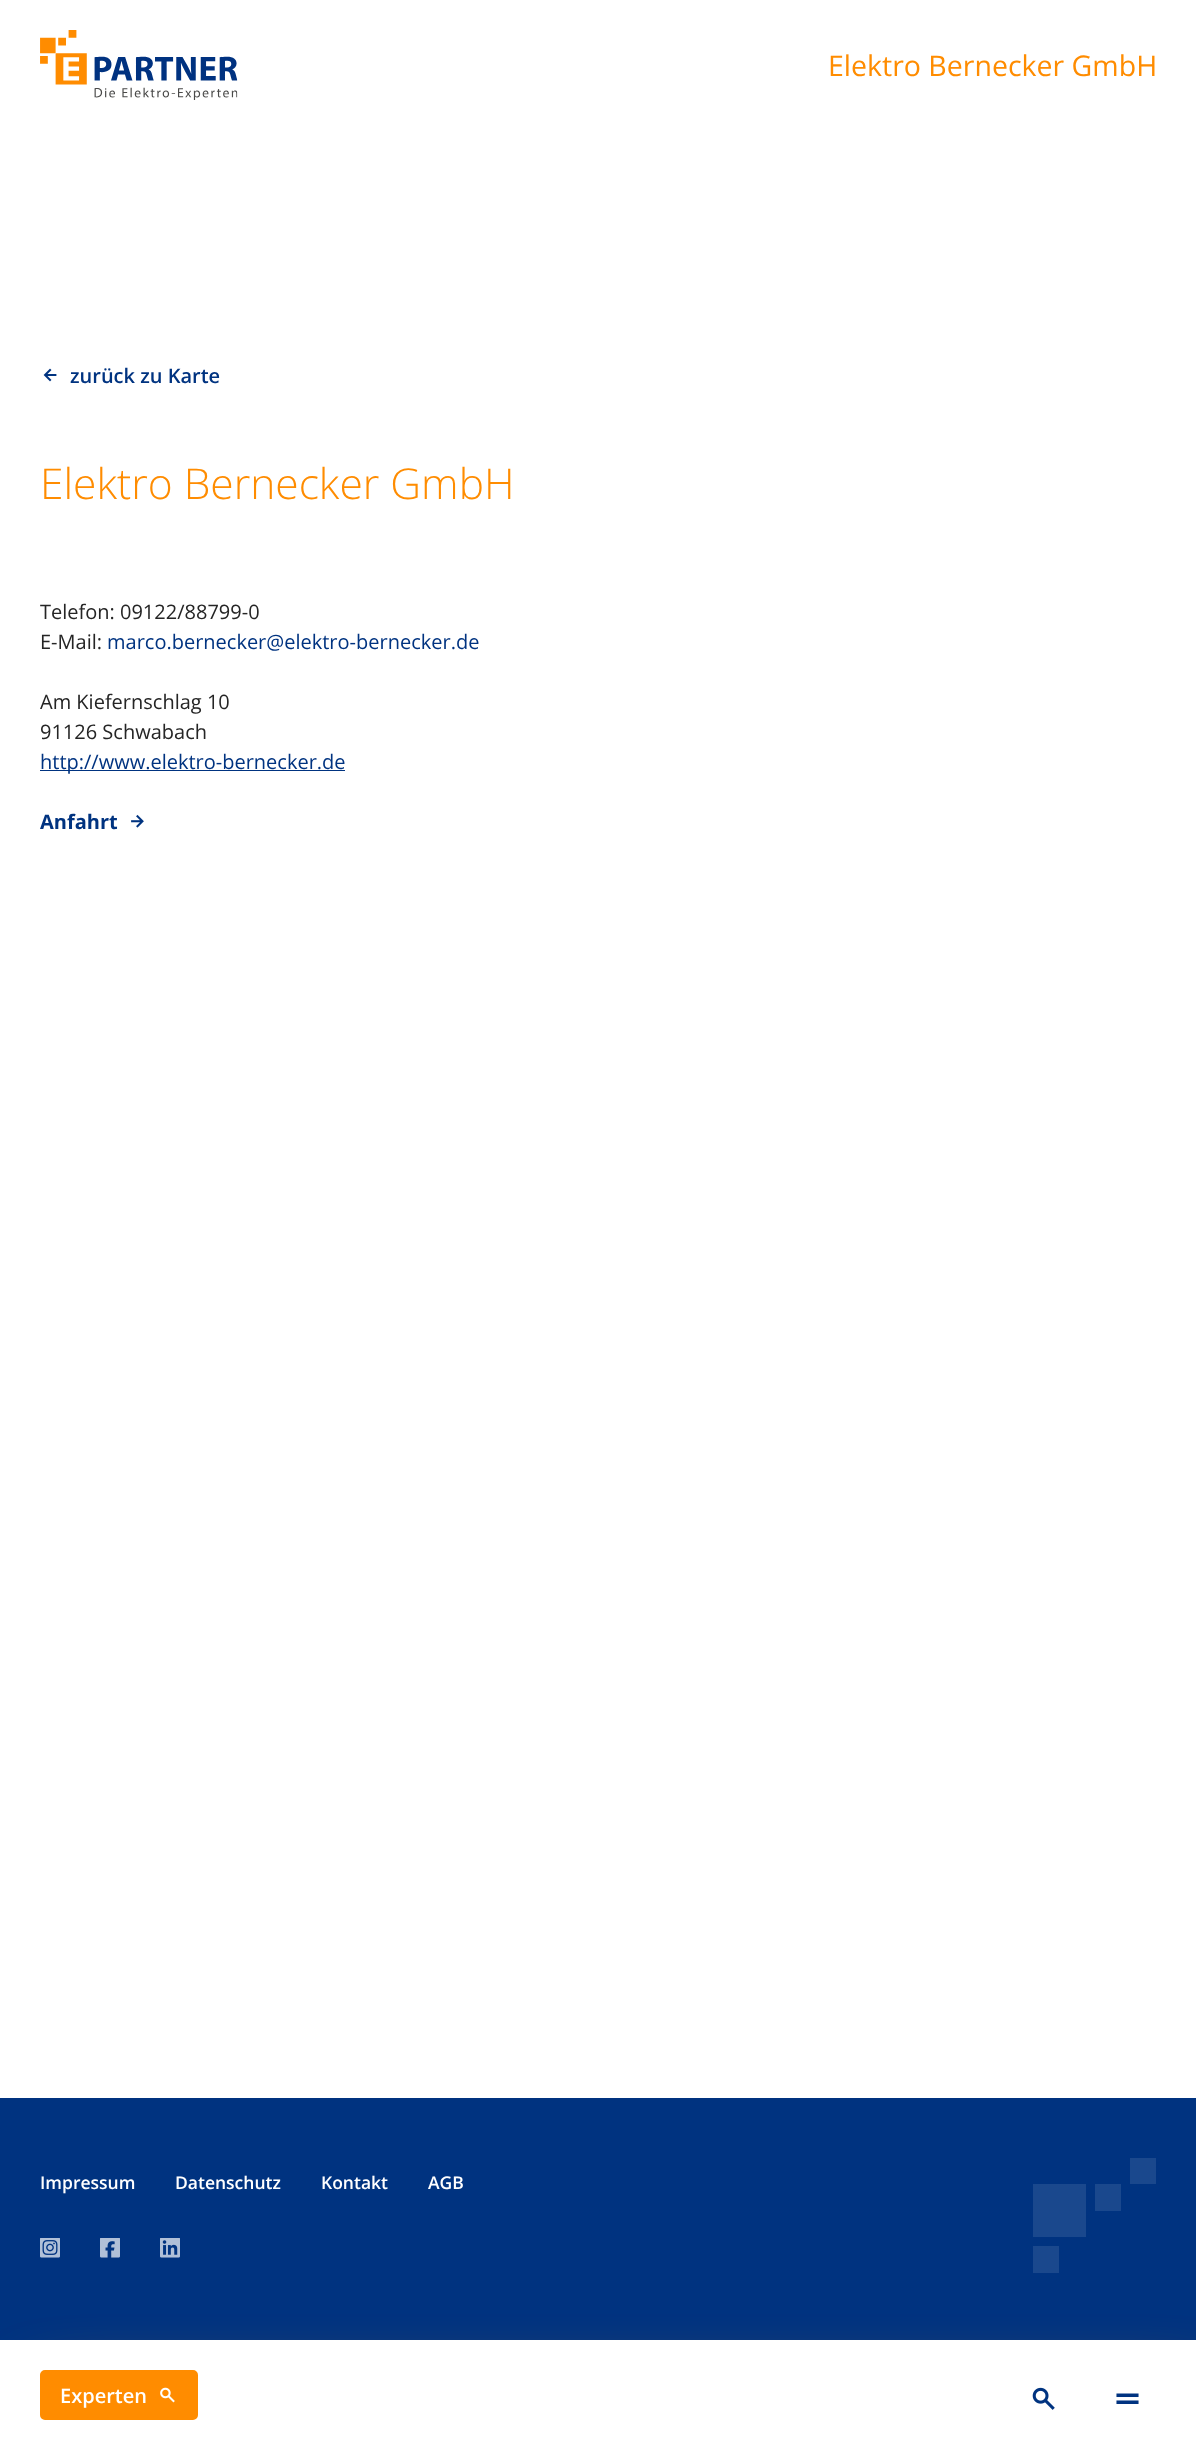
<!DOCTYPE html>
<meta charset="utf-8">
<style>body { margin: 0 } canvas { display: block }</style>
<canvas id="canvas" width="1196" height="2457"></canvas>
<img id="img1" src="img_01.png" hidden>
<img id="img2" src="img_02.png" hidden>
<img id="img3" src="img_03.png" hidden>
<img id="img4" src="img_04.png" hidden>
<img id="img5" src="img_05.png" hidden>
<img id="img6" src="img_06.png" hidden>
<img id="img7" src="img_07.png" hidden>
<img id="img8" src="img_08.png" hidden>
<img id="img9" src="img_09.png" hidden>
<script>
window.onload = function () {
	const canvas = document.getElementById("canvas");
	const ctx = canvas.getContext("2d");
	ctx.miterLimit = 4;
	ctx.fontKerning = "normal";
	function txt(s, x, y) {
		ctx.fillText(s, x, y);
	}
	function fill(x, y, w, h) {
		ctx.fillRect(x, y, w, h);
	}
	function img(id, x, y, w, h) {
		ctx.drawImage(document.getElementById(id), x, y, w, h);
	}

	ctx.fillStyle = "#FFFFFF";
	fill(0, 0, 1196, 2457);
	img("img1", 40, 30, 198, 70);
	img("img2", 43, 368, 14, 14);
	ctx.fillStyle = "#003380";
	fill(40, 770, 305, 1);
	img("img3", 131, 814, 13, 14);
	fill(0, 2098, 1196, 242);
	ctx.fillStyle = "#1A488D";
	fill(1033, 2184, 53, 53);
	fill(1033, 2246, 26, 27);
	fill(1095, 2184, 26, 27);
	fill(1130, 2158, 26, 26);
	img("img4", 40, 2238, 20, 20);
	img("img5", 100, 2238, 20, 20);
	img("img6", 160, 2238, 20, 20);
	ctx.fillStyle = "#FF8C00";
	ctx.filter = "blur(37.5px)";
	ctx.beginPath();
	ctx.rect(44, 2403, 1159, 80);
	ctx.fill();
	ctx.filter = "none";
	ctx.fillStyle = "#FFFFFF";
	fill(0, 2340, 1196, 117);
	ctx.fillStyle = "#FF8C00";
	ctx.beginPath();
	ctx.roundRect(41.5, 2371.5, 155, 47, 3.5);
	ctx.fill();
	ctx.strokeStyle = "#FF8C00";
	ctx.lineWidth = 3;
	ctx.stroke();
	img("img7", 160, 2387, 15, 16);
	img("img8", 1032, 2387, 23, 23);
	img("img9", 1116, 2393, 23, 11);
	ctx.font = "28.5px Open Sans";
	txt("Elektro Bernecker GmbH", 828, 76);
	ctx.font = "600 20px Open Sans";
	ctx.fillStyle = "#003380";
	txt("zurück zu Karte", 70, 383);
	ctx.font = "300 42.5px Open Sans";
	ctx.fillStyle = "#FF8C00";
	txt("Elektro Bernecker GmbH", 40, 499);
	ctx.font = "20px Open Sans";
	ctx.fillStyle = "#252525";
	txt("Telefon: 09122/88799-0", 40, 619);
	txt("E-Mail:", 40, 649);
	ctx.fillStyle = "#003380";
	txt("marco.bernecker@elektro-bernecker.de", 107, 649);
	ctx.fillStyle = "#252525";
	txt("Am Kiefernschlag 10", 40, 709);
	txt("91126 Schwabach", 40, 739);
	ctx.fillStyle = "#003380";
	txt("http://www.elektro-bernecker.de", 40, 769);
	ctx.font = "bold 20px Open Sans";
	txt("Anfahrt", 40, 829);
	ctx.font = "600 17.5px Open Sans";
	ctx.fillStyle = "#FFFFFF";
	txt("Impressum", 40, 2189);
	txt("Datenschutz", 175, 2189);
	txt("Kontakt", 321, 2189);
	txt("AGB", 428, 2189);
	ctx.font = "600 20px Open Sans";
	txt("Experten", 60, 2403);
};
</script>
